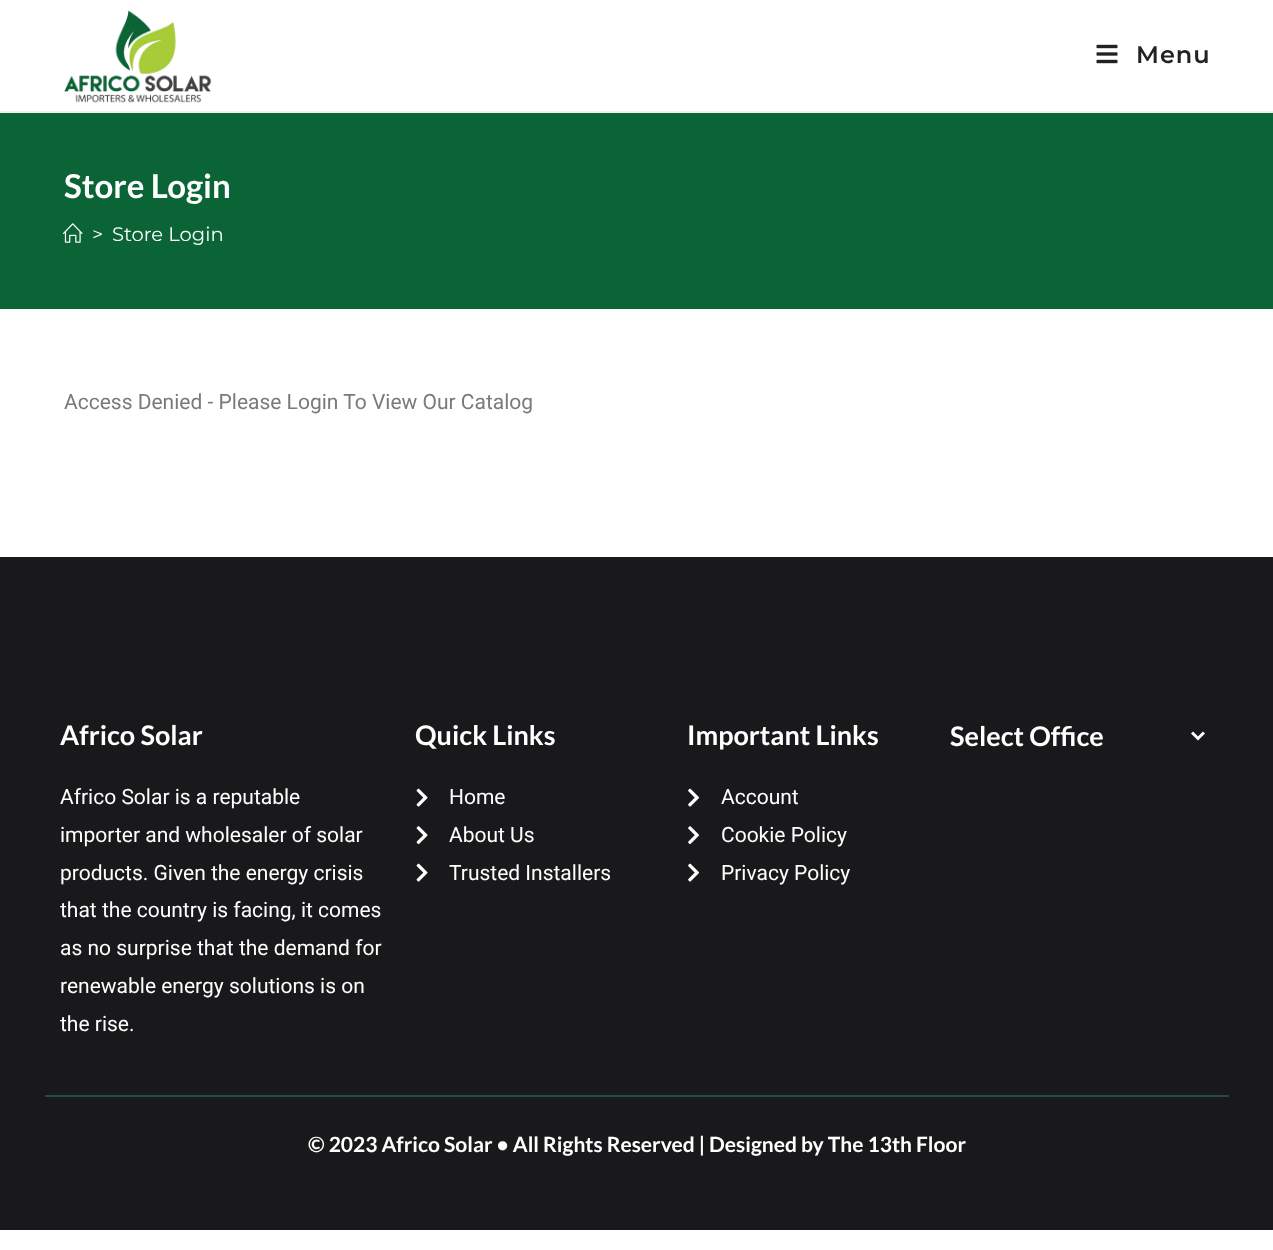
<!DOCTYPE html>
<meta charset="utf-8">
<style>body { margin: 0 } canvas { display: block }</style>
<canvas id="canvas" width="1273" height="1250"></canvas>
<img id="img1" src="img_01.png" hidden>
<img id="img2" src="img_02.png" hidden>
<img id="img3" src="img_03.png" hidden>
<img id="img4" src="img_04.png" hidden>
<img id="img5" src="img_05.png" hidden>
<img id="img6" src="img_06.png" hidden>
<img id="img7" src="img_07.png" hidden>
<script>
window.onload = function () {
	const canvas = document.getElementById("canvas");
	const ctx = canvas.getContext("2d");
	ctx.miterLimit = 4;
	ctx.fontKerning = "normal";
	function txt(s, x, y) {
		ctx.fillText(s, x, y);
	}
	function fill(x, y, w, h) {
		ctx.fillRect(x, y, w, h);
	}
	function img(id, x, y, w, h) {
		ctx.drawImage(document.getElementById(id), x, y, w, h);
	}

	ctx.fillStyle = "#FFFFFF";
	fill(0, 0, 1273, 1250);
	ctx.fillStyle = "#F0F0F0";
	fill(0, 111, 1273, 2);
	img("img1", 64, 10, 148, 93);
	img("img2", 1096, 44, 22, 20);
	ctx.fillStyle = "#0A6436";
	fill(0, 113, 1273, 196);
	img("img3", 63, 223, 20, 20);
	ctx.fillStyle = "#19191B";
	fill(0, 557, 1273, 673);
	img("img4", 416, 788, 12, 19);
	img("img5", 416, 826, 12, 19);
	img("img4", 416, 863, 12, 19);
	img("img6", 688, 788, 11, 19);
	img("img7", 688, 826, 11, 18);
	img("img6", 688, 863, 11, 19);
	ctx.beginPath();
	ctx.moveTo(1192, 732.5);
	ctx.lineTo(1198, 738.5);
	ctx.lineTo(1204, 732.5);
	ctx.strokeStyle = "#FFFFFF";
	ctx.lineWidth = 3;
	ctx.stroke();
	ctx.fillStyle = "#234C47";
	fill(45, 1095, 1184, 2);
	ctx.letterSpacing = "1px";
	ctx.font = "600 24px Montserrat";
	ctx.fillStyle = "#222222";
	txt("Menu", 1136, 63);
	ctx.letterSpacing = "0px";
	ctx.font = "bold 33px Lato";
	ctx.fillStyle = "#FFFFFF";
	txt("Store Login", 64, 198);
	ctx.font = "19.5px Montserrat";
	txt(">", 92, 241);
	txt("Store Login", 112, 241);
	ctx.font = "21px Roboto";
	ctx.fillStyle = "#7A7A7A";
	txt("Access Denied - Please Login To View Our Catalog", 64, 409);
	ctx.font = "bold 27px Lato";
	ctx.fillStyle = "#FFFFFF";
	txt("Africo Solar", 60, 745);
	ctx.font = "21px Roboto";
	txt("Africo Solar is a reputable", 60, 804);
	txt("importer and wholesaler of solar", 60, 842);
	txt("products. Given the energy crisis", 60, 880);
	txt("that the country is facing, it comes", 60, 917);
	txt("as no surprise that the demand for", 60, 955);
	txt("renewable energy solutions is on", 60, 993);
	txt("the rise.", 60, 1031);
	ctx.font = "bold 27px Lato";
	txt("Quick Links", 415, 745);
	ctx.font = "21px Roboto";
	txt("Home", 449, 804);
	txt("About Us", 449, 842);
	txt("Trusted Installers", 449, 880);
	ctx.font = "bold 27px Lato";
	txt("Important Links", 687, 745);
	ctx.font = "21px Roboto";
	txt("Account", 721, 804);
	txt("Cookie Policy", 721, 842);
	txt("Privacy Policy", 721, 880);
	ctx.font = "bold 27px Lato";
	txt("Select Office", 950, 746);
	ctx.font = "bold 21px Lato";
	txt("© 2023 Africo Solar • All Rights Reserved | Designed by The 13th Floor", 308, 1152);
};
</script>
